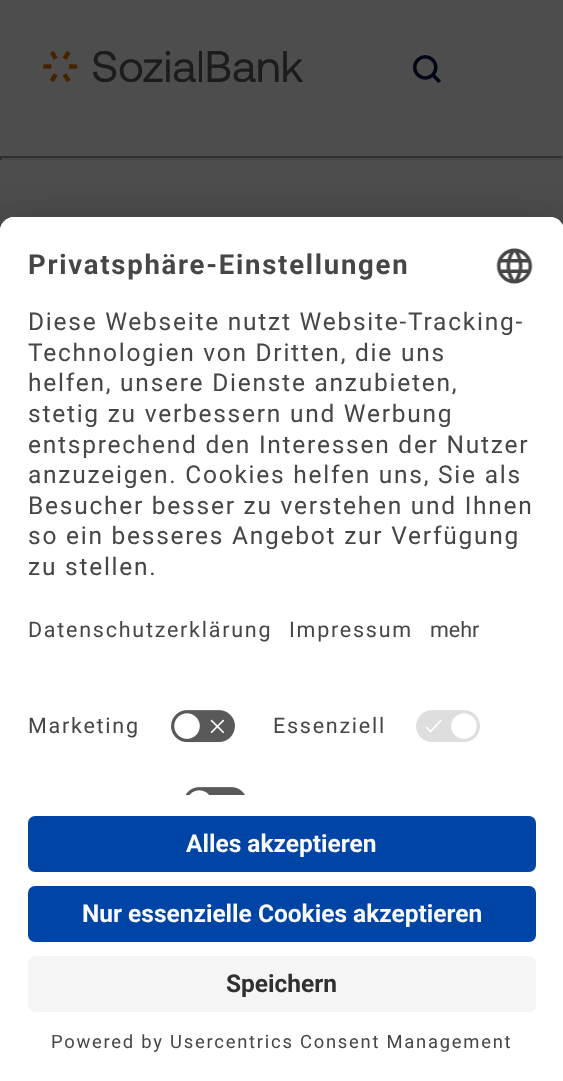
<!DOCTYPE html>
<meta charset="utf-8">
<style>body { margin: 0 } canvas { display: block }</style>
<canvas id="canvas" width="563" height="1081"></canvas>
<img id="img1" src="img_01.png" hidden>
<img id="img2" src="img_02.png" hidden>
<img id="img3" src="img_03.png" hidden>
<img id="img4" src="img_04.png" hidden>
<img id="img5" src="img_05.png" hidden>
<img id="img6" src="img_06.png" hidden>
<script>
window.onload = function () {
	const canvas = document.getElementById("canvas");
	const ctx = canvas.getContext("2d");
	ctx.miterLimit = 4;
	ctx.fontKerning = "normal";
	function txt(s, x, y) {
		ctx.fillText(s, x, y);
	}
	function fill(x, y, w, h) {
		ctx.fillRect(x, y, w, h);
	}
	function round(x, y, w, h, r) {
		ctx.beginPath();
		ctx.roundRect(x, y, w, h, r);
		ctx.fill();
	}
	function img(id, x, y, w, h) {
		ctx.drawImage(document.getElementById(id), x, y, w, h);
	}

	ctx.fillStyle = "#4D4D4D";
	fill(0, 0, 563, 1081);
	img("img1", 43, 51, 261, 31);
	img("img2", 413, 55, 28, 28);
	ctx.fillStyle = "#303030";
	fill(0, 156, 563, 2);
	ctx.fillStyle = "#474747";
	fill(562, 156, 1, 4);
	fill(0, 158, 563, 2);
	ctx.fillStyle = "#303030";
	fill(0, 156, 2, 4);
	ctx.fillStyle = "rgba(0, 0, 0, 0.3)";
	ctx.filter = "blur(24.5px)";
	ctx.beginPath();
	ctx.roundRect(0, 252, 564, 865, 14);
	ctx.fill();
	ctx.filter = "none";
	ctx.fillStyle = "rgba(0, 0, 0, 0.22)";
	ctx.filter = "blur(23px)";
	ctx.beginPath();
	ctx.roundRect(0, 226, 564, 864, 14);
	ctx.fill();
	ctx.filter = "none";
	ctx.fillStyle = "#FFFFFF";
	ctx.beginPath();
	ctx.moveTo(14, 217);
	ctx.lineTo(550, 217);
	ctx.bezierCurveTo(557.5, 217, 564, 223.5, 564, 231);
	ctx.lineTo(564, 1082);
	ctx.lineTo(0, 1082);
	ctx.lineTo(0, 231);
	ctx.bezierCurveTo(0, 223.5, 6.5, 217, 14, 217);
	ctx.closePath();
	ctx.fill();
	ctx.beginPath();
	ctx.moveTo(14, 217);
	ctx.lineTo(550, 217);
	ctx.bezierCurveTo(557.5, 217, 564, 223.5, 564, 231);
	ctx.lineTo(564, 795);
	ctx.lineTo(0, 795);
	ctx.lineTo(0, 231);
	ctx.bezierCurveTo(0, 223.5, 6.5, 217, 14, 217);
	ctx.closePath();
	ctx.fill();
	ctx.beginPath();
	ctx.moveTo(14, 217);
	ctx.lineTo(550, 217);
	ctx.bezierCurveTo(557.5, 217, 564, 223.5, 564, 231);
	ctx.lineTo(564, 698);
	ctx.lineTo(0, 698);
	ctx.lineTo(0, 231);
	ctx.bezierCurveTo(0, 223.5, 6.5, 217, 14, 217);
	ctx.closePath();
	ctx.fill();
	img("img3", 496, 248, 37, 36);
	img("img4", 171, 710, 64, 33);
	img("img5", 416, 710, 64, 32);
	img("img6", 185, 787, 60, 8);
	ctx.fillStyle = "#0045A5";
	round(28, 816, 508, 56, 7);
	round(28, 886, 508, 56, 7);
	ctx.fillStyle = "#F5F5F5";
	round(28, 956, 508, 56, 7);
	ctx.letterSpacing = "1.75px";
	ctx.font = "bold 27.5px Roboto";
	ctx.fillStyle = "#464646";
	txt("Privatsphäre-Einstellungen", 28, 274);
	ctx.font = "24.5px Roboto";
	txt("Diese Webseite nutzt Website-Tracking-", 28, 330);
	txt("Technologien von Dritten, die uns", 28, 361);
	txt("helfen, unsere Dienste anzubieten,", 28, 391);
	txt("stetig zu verbessern und Werbung", 28, 422);
	txt("entsprechend den Interessen der Nutzer", 28, 453);
	txt("anzuzeigen. Cookies helfen uns, Sie als", 28, 483);
	txt("Besucher besser zu verstehen und Ihnen", 28, 514);
	txt("so ein besseres Angebot zur Verfügung", 28, 544);
	txt("zu stellen.", 28, 575);
	ctx.font = "21.5px Roboto";
	txt("Datenschutzerklärung", 28, 637);
	txt("Impressum", 289, 637);
	ctx.letterSpacing = "0px";
	txt("mehr", 430, 637);
	ctx.letterSpacing = "1.75px";
	txt("Marketing", 28, 733);
	txt("Essenziell", 273, 733);
	ctx.letterSpacing = "0px";
	ctx.font = "bold 24.5px Roboto";
	ctx.fillStyle = "#FAFAFA";
	txt("Alles akzeptieren", 186, 852);
	txt("Nur essenzielle Cookies akzeptieren", 82, 922);
	ctx.fillStyle = "#303030";
	txt("Speichern", 226, 992);
	ctx.letterSpacing = "1.75px";
	ctx.font = "18.4px Roboto";
	ctx.fillStyle = "#464646";
	txt("Powered by Usercentrics Consent Management", 51, 1048);
};
</script>
